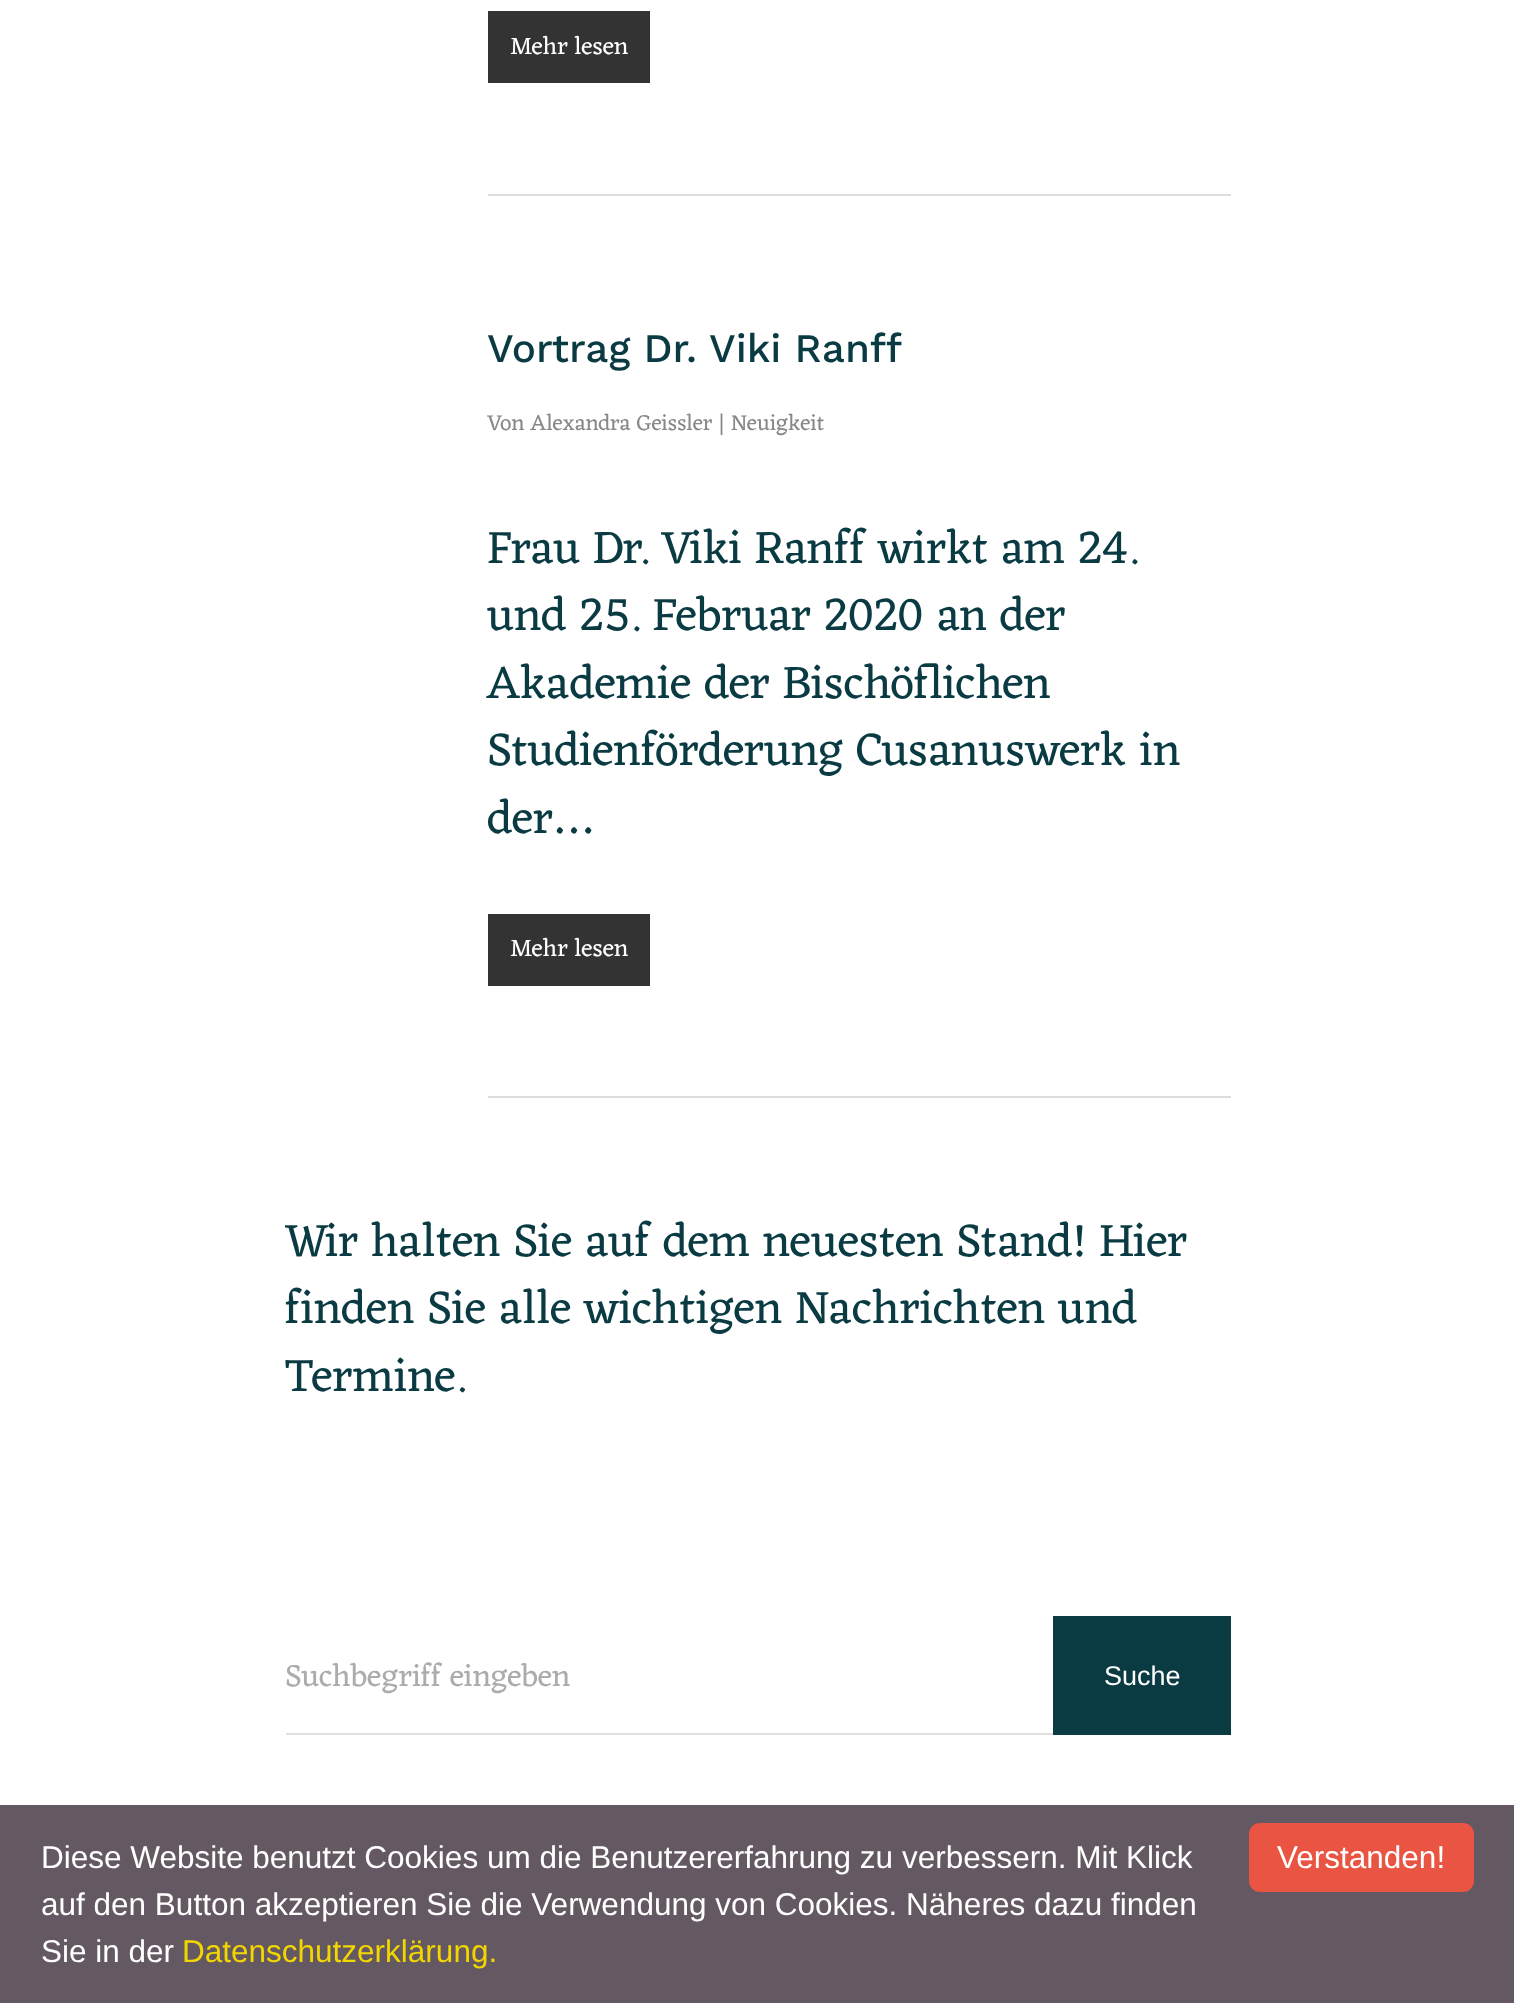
<!DOCTYPE html>
<meta charset="utf-8">
<style>body { margin: 0 } canvas { display: block }</style>
<canvas id="canvas" width="1514" height="2003"></canvas>
<script>
window.onload = function () {
	const canvas = document.getElementById("canvas");
	const ctx = canvas.getContext("2d");
	ctx.miterLimit = 4;
	ctx.fontKerning = "normal";
	function txt(s, x, y) {
		ctx.fillText(s, x, y);
	}
	function fill(x, y, w, h) {
		ctx.fillRect(x, y, w, h);
	}
	function round(x, y, w, h, r) {
		ctx.beginPath();
		ctx.roundRect(x, y, w, h, r);
		ctx.fill();
	}

	ctx.fillStyle = "#FFFFFF";
	fill(0, 0, 1514, 2003);
	ctx.fillStyle = "#DDDDDD";
	fill(488, 194, 743, 2);
	ctx.fillStyle = "#333333";
	fill(488, 11, 162, 72);
	ctx.fillStyle = "#DDDDDD";
	fill(488, 1096, 743, 2);
	ctx.fillStyle = "#333333";
	fill(488, 914, 162, 72);
	ctx.fillStyle = "#E0E0E0";
	fill(286, 1733, 767, 2);
	ctx.fillStyle = "#0A3B43";
	fill(1053, 1616, 178, 119);
	ctx.fillStyle = "#645862";
	fill(0, 1805, 1514, 198);
	ctx.fillStyle = "#E95443";
	round(1249, 1823, 225, 69, 11);
	ctx.font = "24.75px Eczar";
	ctx.fillStyle = "#FFFFFF";
	txt("Mehr lesen", 510, 54);
	ctx.font = "500 40.5px Work Sans";
	ctx.fillStyle = "#0A3B43";
	txt("Vortrag Dr. Viki Ranff", 487, 362);
	ctx.font = "22.5px Eczar";
	ctx.fillStyle = "#888888";
	txt("Von Alexandra Geissler | Neuigkeit", 487, 430);
	ctx.font = "47.25px Eczar";
	ctx.fillStyle = "#0A3B43";
	txt("Frau Dr. Viki Ranff wirkt am 24.", 487, 563);
	txt("und 25. Februar 2020 an der", 487, 630);
	txt("Akademie der Bischöflichen", 487, 698);
	txt("Studienförderung Cusanuswerk in", 487, 765);
	txt("der…", 487, 833);
	ctx.font = "24.75px Eczar";
	ctx.fillStyle = "#FFFFFF";
	txt("Mehr lesen", 510, 956);
	ctx.font = "47.25px Eczar";
	ctx.fillStyle = "#0A3B43";
	txt("Wir halten Sie auf dem neuesten Stand! Hier", 285, 1256);
	txt("finden Sie alle wichtigen Nachrichten und", 285, 1323);
	txt("Termine.", 285, 1391);
	ctx.font = "31.5px Eczar";
	ctx.fillStyle = "#ACACAC";
	txt("Suchbegriff eingeben", 285, 1686);
	ctx.font = "27px Liberation Sans";
	ctx.fillStyle = "#FFFFFF";
	txt("Suche", 1104, 1685);
	ctx.font = "31.5px Liberation Sans";
	txt("Diese Website benutzt Cookies um die Benutzererfahrung zu verbessern. Mit Klick", 41, 1868);
	txt("auf den Button akzeptieren Sie die Verwendung von Cookies. Näheres dazu finden", 41, 1915);
	txt("Sie in der", 41, 1962);
	ctx.fillStyle = "#F1D600";
	txt("Datenschutzerklärung.", 182, 1962);
	ctx.fillStyle = "#FFFFFF";
	txt("Verstanden!", 1277, 1868);
};
</script>
